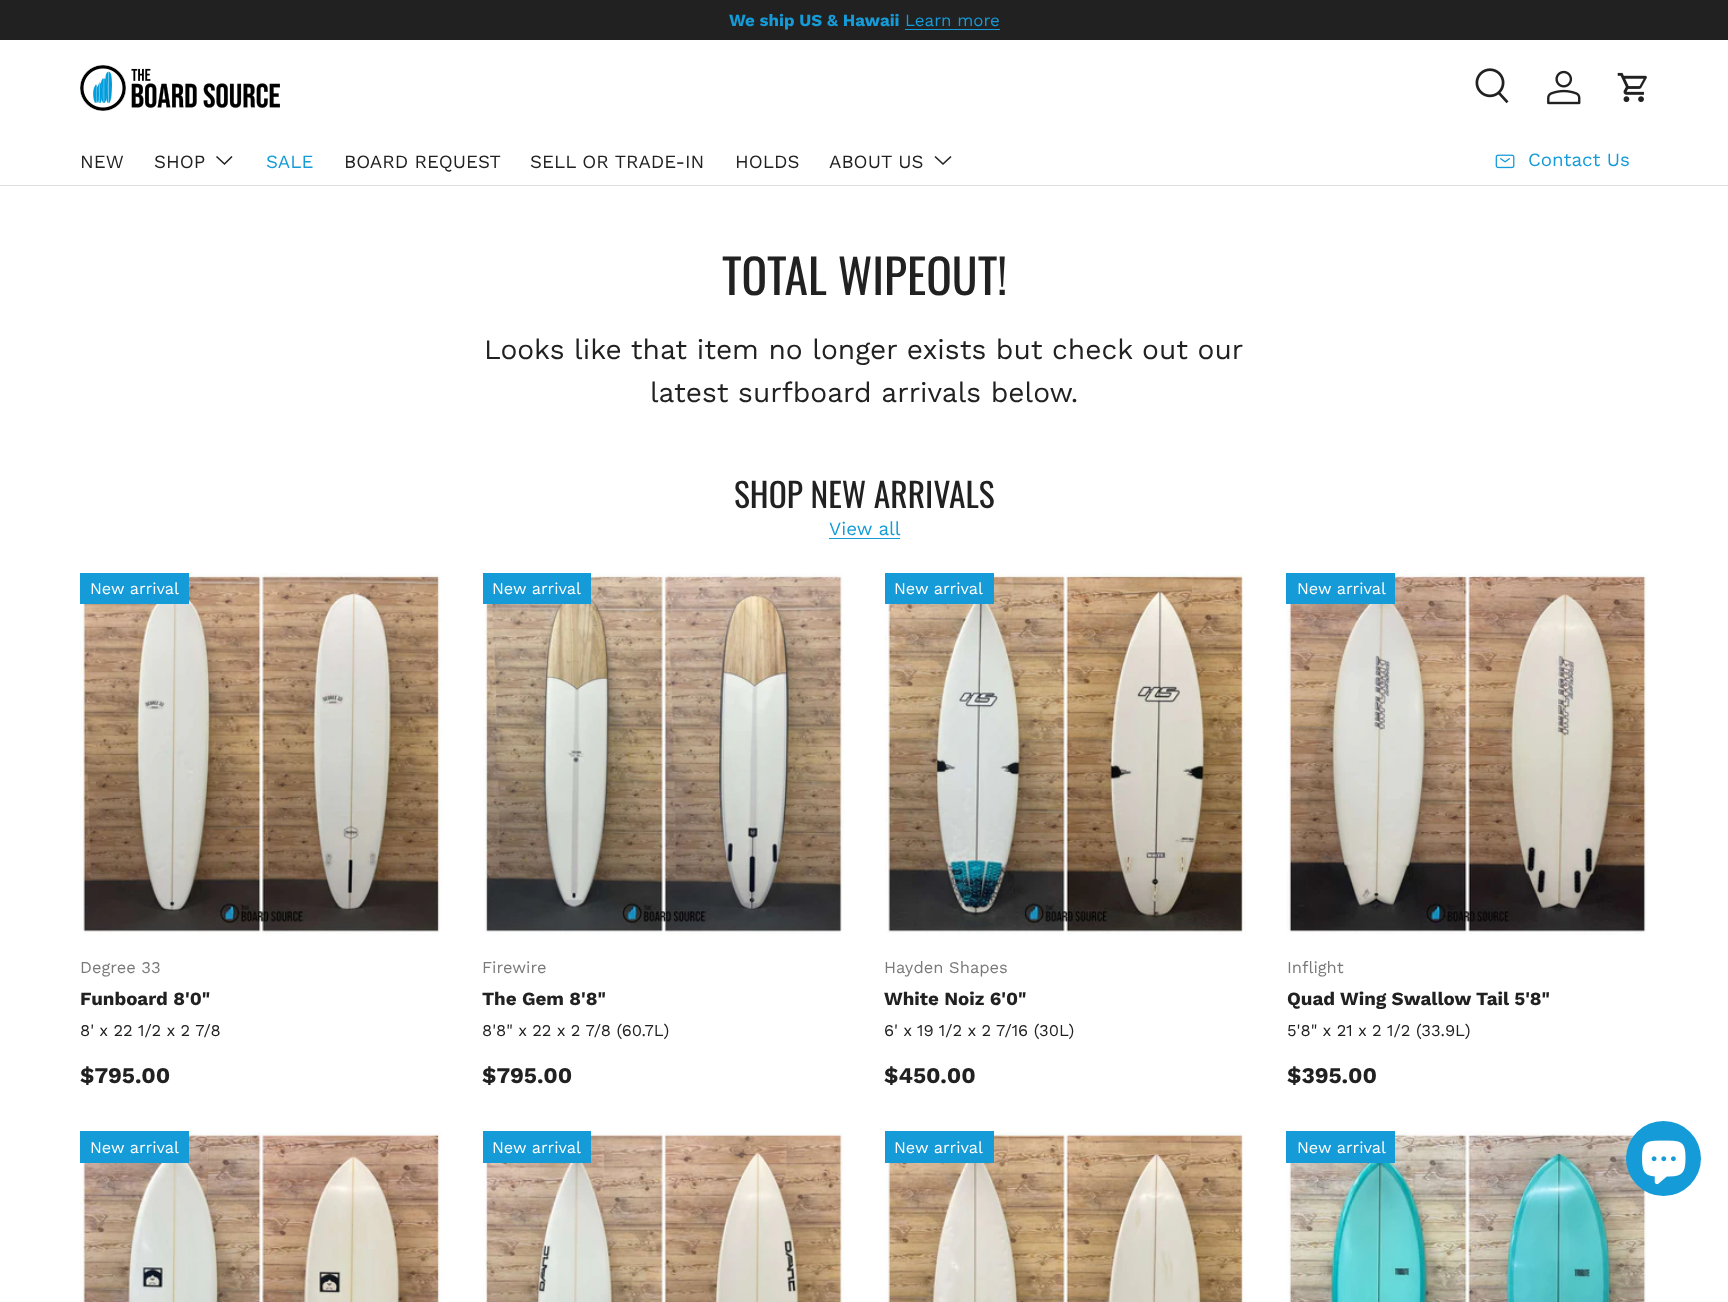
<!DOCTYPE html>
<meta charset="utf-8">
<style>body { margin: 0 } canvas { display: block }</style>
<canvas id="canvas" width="1728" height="1302"></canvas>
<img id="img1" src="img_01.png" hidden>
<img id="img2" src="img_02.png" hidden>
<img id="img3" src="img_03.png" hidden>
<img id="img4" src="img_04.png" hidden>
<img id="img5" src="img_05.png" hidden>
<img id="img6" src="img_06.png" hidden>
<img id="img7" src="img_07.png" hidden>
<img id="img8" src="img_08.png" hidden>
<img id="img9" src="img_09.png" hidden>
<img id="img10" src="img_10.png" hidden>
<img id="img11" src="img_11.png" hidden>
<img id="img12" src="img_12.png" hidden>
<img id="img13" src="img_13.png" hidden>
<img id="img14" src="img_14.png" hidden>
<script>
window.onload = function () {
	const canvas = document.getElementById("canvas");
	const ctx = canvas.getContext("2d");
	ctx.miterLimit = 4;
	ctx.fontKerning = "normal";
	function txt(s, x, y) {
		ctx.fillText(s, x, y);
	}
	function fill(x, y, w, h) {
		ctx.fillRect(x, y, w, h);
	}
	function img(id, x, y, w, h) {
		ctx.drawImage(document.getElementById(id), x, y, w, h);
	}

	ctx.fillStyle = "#FFFFFF";
	fill(0, 0, 1728, 1302);
	ctx.fillStyle = "#212121";
	fill(0, 0, 1728, 40);
	ctx.fillStyle = "#159BD7";
	fill(905, 29, 95, 1);
	ctx.fillStyle = "#DEDEDE";
	fill(0, 185, 1728, 1);
	img("img1", 80, 65, 200, 46);
	img("img2", 1475, 68, 34, 36);
	img("img3", 1547, 70, 34, 35);
	img("img4", 1617, 72, 30, 31);
	ctx.beginPath();
	ctx.moveTo(232, 156.5);
	ctx.lineTo(224.5, 164);
	ctx.lineTo(216.5, 156.5);
	ctx.strokeStyle = "#212121";
	ctx.lineWidth = 1.6;
	ctx.stroke();
	ctx.beginPath();
	ctx.moveTo(951, 156.5);
	ctx.lineTo(943, 164);
	ctx.lineTo(935, 156.5);
	ctx.stroke();
	img("img5", 1495, 154, 20, 15);
	ctx.fillStyle = "#159BD7";
	fill(829, 538, 71, 1);
	img("img6", 80, 573, 362, 362);
	fill(80, 573, 109, 31);
	img("img7", 483, 573, 362, 362);
	fill(483, 573, 108, 31);
	img("img8", 885, 573, 361, 362);
	fill(885, 573, 109, 31);
	img("img9", 1286, 573, 362, 362);
	fill(1286, 573, 109, 31);
	img("img10", 80, 1131, 362, 171);
	fill(80, 1131, 109, 32);
	img("img11", 483, 1131, 362, 171);
	fill(483, 1131, 108, 32);
	img("img12", 885, 1131, 361, 171);
	fill(885, 1131, 109, 32);
	img("img13", 1287, 1131, 361, 171);
	fill(1286, 1131, 109, 32);
	ctx.beginPath();
	ctx.arc(1663.5, 1158.5, 37.5, 0, Math.PI * 2);
	ctx.fill();
	img("img14", 1642, 1140, 44, 45);
	ctx.font = "bold 16.9px Work Sans";
	txt("We ship US & Hawaii", 729, 26);
	ctx.font = "16.9px Work Sans";
	txt("Learn more", 905, 26);
	ctx.font = "18.75px Work Sans";
	ctx.fillStyle = "#212121";
	txt("NEW", 80, 168);
	txt("SHOP", 154, 168);
	ctx.fillStyle = "#159BD7";
	txt("SALE", 266, 168);
	ctx.fillStyle = "#212121";
	txt("BOARD REQUEST", 344, 168);
	txt("SELL OR TRADE-IN", 530, 168);
	txt("HOLDS", 735, 168);
	txt("ABOUT US", 829, 168);
	ctx.fillStyle = "#159BD7";
	txt("Contact Us", 1528, 166);
	ctx.font = "47.5px Oswald";
	ctx.fillStyle = "#212121";
	txt("TOTAL WIPEOUT!", 722, 295);
	ctx.font = "28.1px Work Sans";
	txt("Looks like that item no longer exists but check out our", 484, 359);
	txt("latest surfboard arrivals below.", 650, 402);
	ctx.font = "33.5px Oswald";
	txt("SHOP NEW ARRIVALS", 734, 508);
	ctx.font = "18.75px Work Sans";
	ctx.fillStyle = "#159BD7";
	txt("View all", 829, 535);
	ctx.font = "16.25px Work Sans";
	ctx.fillStyle = "#FFFFFF";
	txt("New arrival", 90, 594);
	ctx.font = "16.5px Work Sans";
	ctx.fillStyle = "#7A7A7A";
	txt("Degree 33", 80, 973);
	ctx.font = "bold 18.75px Work Sans";
	ctx.fillStyle = "#212121";
	txt("Funboard 8'0\"", 80, 1005);
	ctx.font = "16.5px Work Sans";
	txt("8' x 22 1/2 x 2 7/8", 80, 1036);
	ctx.font = "bold 22.5px Work Sans";
	txt("$795.00", 80, 1083);
	ctx.font = "16.25px Work Sans";
	ctx.fillStyle = "#FFFFFF";
	txt("New arrival", 492, 594);
	ctx.font = "16.5px Work Sans";
	ctx.fillStyle = "#7A7A7A";
	txt("Firewire", 482, 973);
	ctx.font = "bold 18.75px Work Sans";
	ctx.fillStyle = "#212121";
	txt("The Gem 8'8\"", 482, 1005);
	ctx.font = "16.5px Work Sans";
	txt("8'8\" x 22 x 2 7/8 (60.7L)", 482, 1036);
	ctx.font = "bold 22.5px Work Sans";
	txt("$795.00", 482, 1083);
	ctx.font = "16.25px Work Sans";
	ctx.fillStyle = "#FFFFFF";
	txt("New arrival", 894, 594);
	ctx.font = "16.5px Work Sans";
	ctx.fillStyle = "#7A7A7A";
	txt("Hayden Shapes", 884, 973);
	ctx.font = "bold 18.75px Work Sans";
	ctx.fillStyle = "#212121";
	txt("White Noiz 6'0\"", 884, 1005);
	ctx.font = "16.5px Work Sans";
	txt("6' x 19 1/2 x 2 7/16 (30L)", 884, 1036);
	ctx.font = "bold 22.5px Work Sans";
	txt("$450.00", 884, 1083);
	ctx.font = "16.25px Work Sans";
	ctx.fillStyle = "#FFFFFF";
	txt("New arrival", 1297, 594);
	ctx.font = "16.5px Work Sans";
	ctx.fillStyle = "#7A7A7A";
	txt("Inflight", 1287, 973);
	ctx.font = "bold 18.75px Work Sans";
	ctx.fillStyle = "#212121";
	txt("Quad Wing Swallow Tail 5'8\"", 1287, 1005);
	ctx.font = "16.5px Work Sans";
	txt("5'8\" x 21 x 2 1/2 (33.9L)", 1287, 1036);
	ctx.font = "bold 22.5px Work Sans";
	txt("$395.00", 1287, 1083);
	ctx.font = "16.25px Work Sans";
	ctx.fillStyle = "#FFFFFF";
	txt("New arrival", 90, 1153);
	txt("New arrival", 492, 1153);
	txt("New arrival", 894, 1153);
	txt("New arrival", 1297, 1153);
};
</script>
